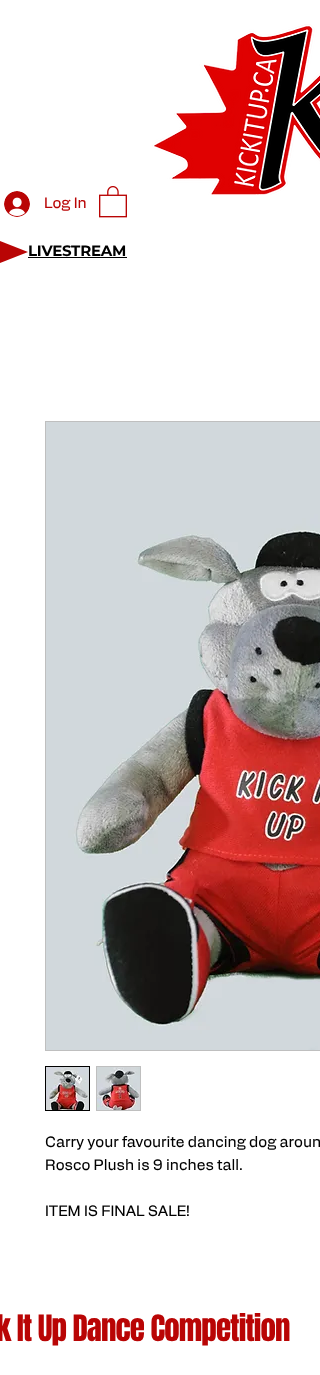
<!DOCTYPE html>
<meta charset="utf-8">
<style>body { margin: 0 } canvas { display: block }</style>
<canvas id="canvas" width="320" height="1375"></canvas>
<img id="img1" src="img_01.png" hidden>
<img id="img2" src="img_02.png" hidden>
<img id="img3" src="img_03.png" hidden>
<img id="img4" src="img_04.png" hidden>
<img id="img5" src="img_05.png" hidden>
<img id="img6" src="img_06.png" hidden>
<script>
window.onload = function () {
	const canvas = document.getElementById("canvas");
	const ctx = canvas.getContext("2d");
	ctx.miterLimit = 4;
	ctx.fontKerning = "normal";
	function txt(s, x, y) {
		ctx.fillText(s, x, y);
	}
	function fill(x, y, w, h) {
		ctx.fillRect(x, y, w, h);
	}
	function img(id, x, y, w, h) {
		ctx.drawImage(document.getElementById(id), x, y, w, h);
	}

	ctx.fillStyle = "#FFFFFF";
	fill(0, 0, 320, 1375);
	img("img1", 152, 24, 168, 171);
	img("img2", 4, 191, 26, 26);
	img("img3", 99, 186, 28, 32);
	ctx.fillStyle = "#B90505";
	ctx.beginPath();
	ctx.moveTo(0, 241);
	ctx.lineTo(28, 252);
	ctx.lineTo(0, 263);
	ctx.closePath();
	ctx.fill();
	ctx.fillStyle = "#000000";
	fill(28, 257, 99, 1);
	ctx.strokeStyle = "#BFBFBF";
	ctx.strokeRect(45.5, 421.5, 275, 629);
	img("img4", 46, 422, 274, 628);
	ctx.strokeStyle = "#000000";
	ctx.strokeRect(45.5, 1066.5, 44, 44);
	img("img5", 46, 1067, 43, 43);
	ctx.fillStyle = "#BFBFBF";
	fill(96, 1066, 45, 45);
	img("img6", 97, 1067, 43, 43);
	ctx.font = "15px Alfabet";
	ctx.fillStyle = "#B90505";
	txt("Log In", 44, 208);
	ctx.letterSpacing = "-0.25px";
	ctx.font = "bold 15px Montserrat";
	ctx.fillStyle = "#000000";
	txt("LIVESTREAM", 28, 256);
	ctx.letterSpacing = "0px";
	ctx.font = "15px Alfabet";
	txt("Carry your favourite dancing dog aroun", 45, 1147);
	txt("Rosco Plush is 9 inches tall.", 45, 1170);
	txt("ITEM IS FINAL SALE!", 45, 1216);
	ctx.letterSpacing = "-0.9px";
	ctx.font = "31px Anton";
	ctx.fillStyle = "#B90505";
	txt("k It Up Dance Competition", -4, 1341);
};
</script>
